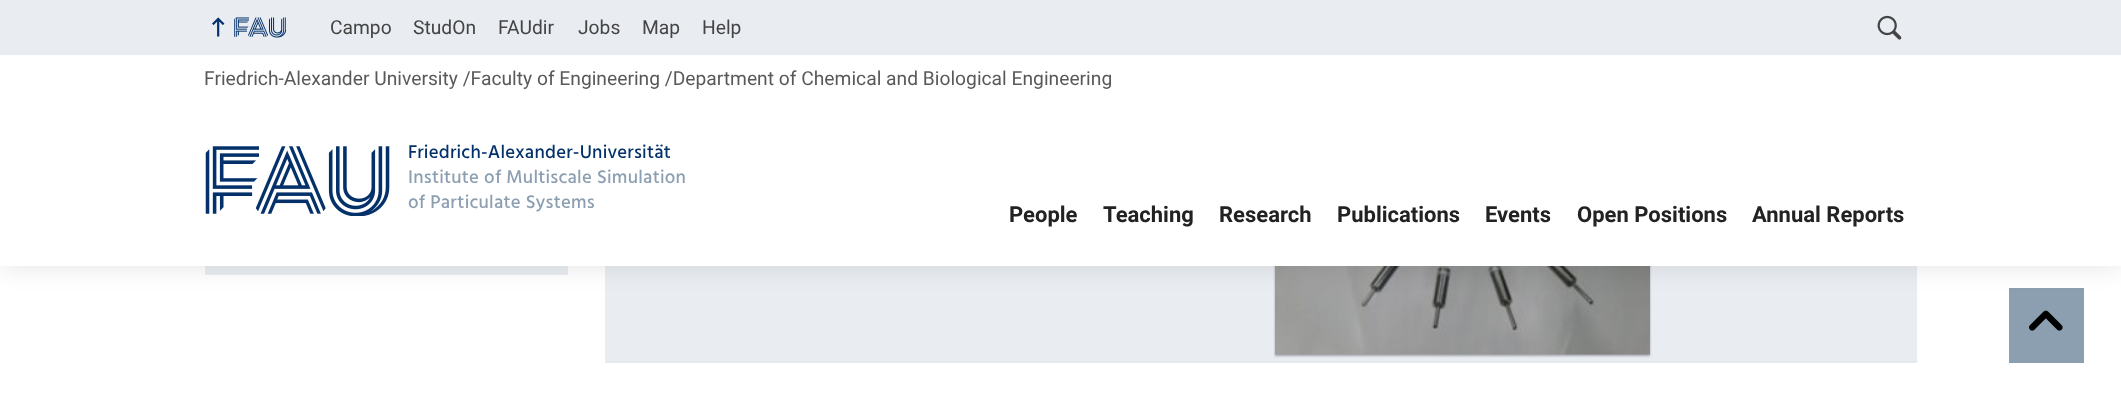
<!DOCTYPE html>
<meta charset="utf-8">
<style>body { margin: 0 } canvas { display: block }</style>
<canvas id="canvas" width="2121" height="400"></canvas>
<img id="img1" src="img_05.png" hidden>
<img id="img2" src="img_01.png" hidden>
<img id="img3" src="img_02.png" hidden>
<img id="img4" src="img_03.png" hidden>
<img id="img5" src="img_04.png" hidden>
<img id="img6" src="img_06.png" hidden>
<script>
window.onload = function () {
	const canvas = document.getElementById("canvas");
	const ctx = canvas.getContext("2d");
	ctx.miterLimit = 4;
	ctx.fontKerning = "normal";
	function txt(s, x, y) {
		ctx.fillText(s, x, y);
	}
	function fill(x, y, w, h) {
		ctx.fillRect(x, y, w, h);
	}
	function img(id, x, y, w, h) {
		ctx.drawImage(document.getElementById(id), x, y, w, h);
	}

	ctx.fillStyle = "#FFFFFF";
	fill(0, 0, 2121, 400);
	ctx.fillStyle = "#E9EDF2";
	fill(205, 266, 363, 9);
	fill(606, 266, 654, 97);
	fill(1261, 266, 655, 97);
	ctx.fillStyle = "#DFE6EC";
	fill(605, 361, 1313, 1);
	ctx.fillStyle = "#E9EDF2";
	fill(1916, 266, 1, 97);
	fill(605, 266, 1, 97);
	fill(1260, 266, 1, 97);
	ctx.fillStyle = "rgba(0, 0, 0, 0.3)";
	ctx.filter = "blur(1px)";
	ctx.beginPath();
	ctx.rect(1275, 75, 375, 281);
	ctx.fill();
	ctx.filter = "none";
	img("img1", 1275, 266, 375, 89);
	ctx.fillStyle = "#8C9FB1";
	fill(2009, 288, 75, 75);
	ctx.fillStyle = "rgba(0, 0, 0, 0.11)";
	ctx.filter = "blur(13px)";
	ctx.beginPath();
	ctx.rect(0, 0, 2121, 266);
	ctx.fill();
	ctx.filter = "none";
	ctx.fillStyle = "#FFFFFF";
	fill(0, 55, 2121, 211);
	ctx.fillStyle = "#E9EDF2";
	fill(0, 0, 2121, 55);
	img("img2", 212, 17, 13, 20);
	img("img3", 234, 17, 52, 21);
	img("img4", 1877, 15, 25, 25);
	img("img5", 205, 146, 185, 70);
	img("img6", 2029, 310, 34, 21);
	ctx.font = "19.25px Roboto";
	ctx.fillStyle = "#444444";
	txt("Campo", 330, 34);
	txt("StudOn", 413, 34);
	txt("FAUdir", 498, 34);
	txt("Jobs", 578, 34);
	txt("Map", 642, 34);
	txt("Help", 702, 34);
	ctx.fillStyle = "#5B5858";
	txt("Friedrich-Alexander University /Faculty of Engineering /Department of Chemical and Biological Engineering", 204, 85);
	ctx.letterSpacing = "0.25px";
	ctx.font = "500 18.75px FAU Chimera";
	ctx.fillStyle = "#04316A";
	txt("Friedrich-Alexander-Universität", 408, 158);
	ctx.fillStyle = "#8C9FB1";
	txt("Institute of Multiscale Simulation", 408, 183);
	txt("of Particulate Systems", 408, 208);
	ctx.letterSpacing = "0px";
	ctx.font = "bold 22px Roboto";
	ctx.fillStyle = "#222222";
	txt("People", 1009, 222);
	txt("Teaching", 1103, 222);
	txt("Research", 1219, 222);
	txt("Publications", 1337, 222);
	txt("Events", 1485, 222);
	txt("Open Positions", 1577, 222);
	txt("Annual Reports", 1752, 222);
};
</script>
